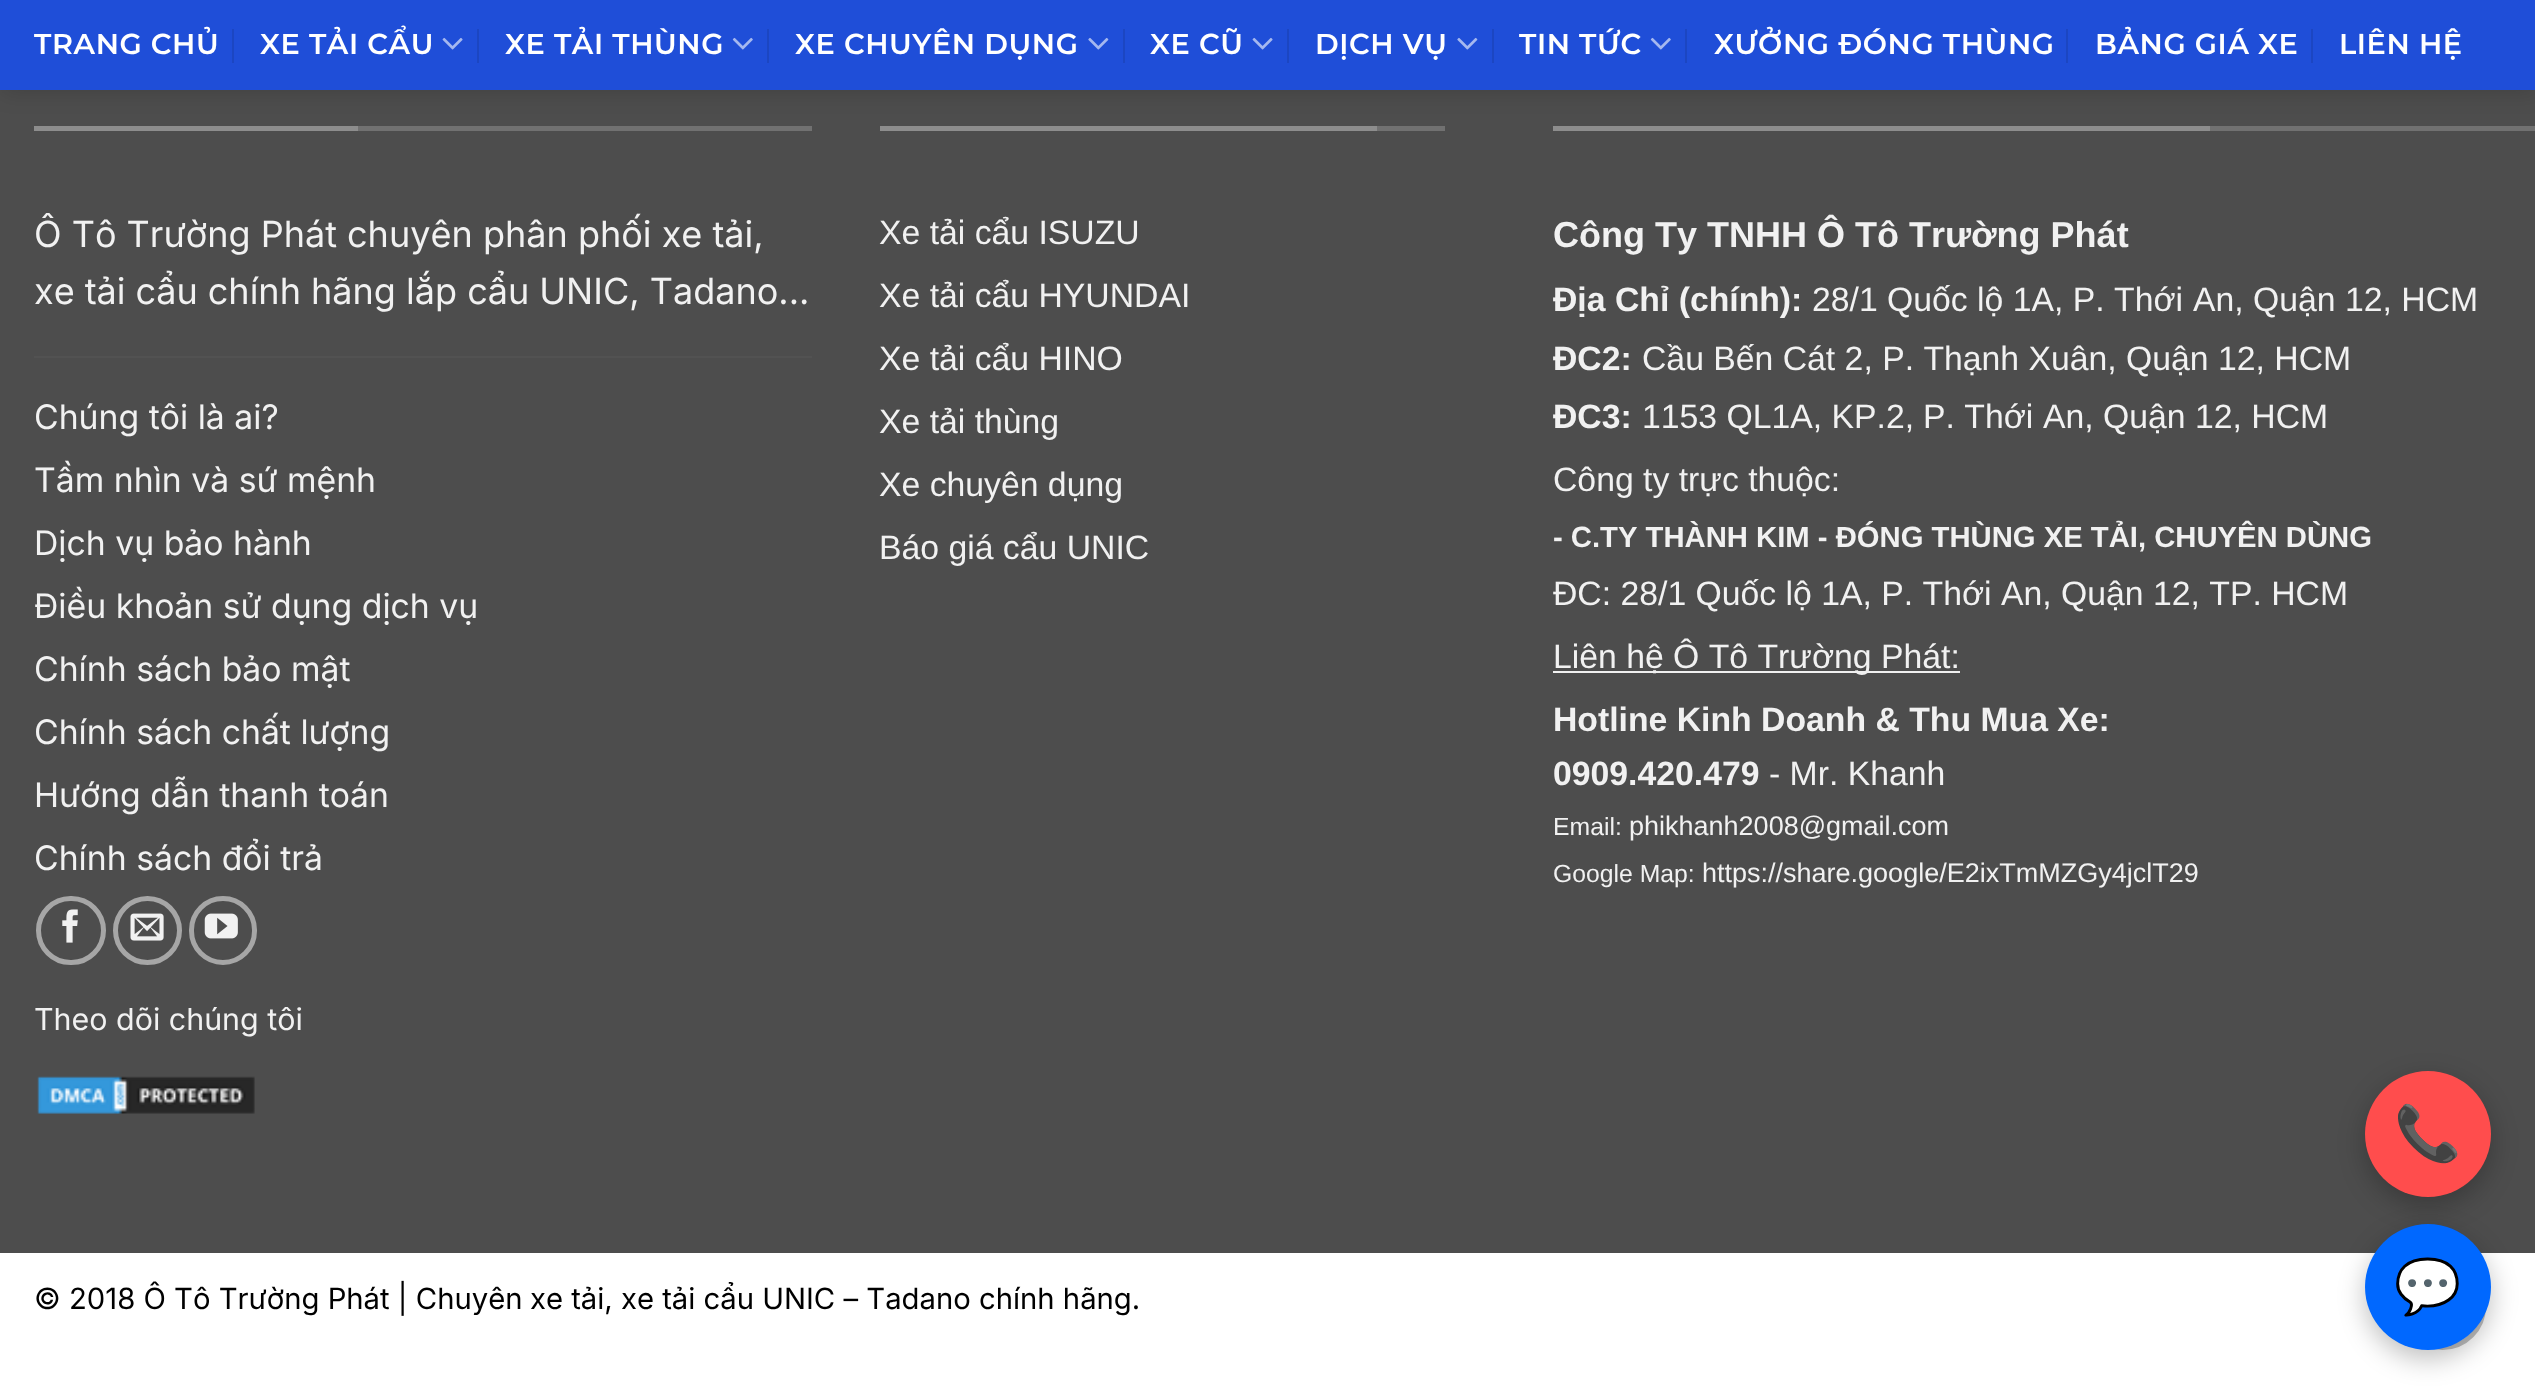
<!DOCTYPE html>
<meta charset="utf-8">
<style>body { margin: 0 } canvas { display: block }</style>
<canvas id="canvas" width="2535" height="1394"></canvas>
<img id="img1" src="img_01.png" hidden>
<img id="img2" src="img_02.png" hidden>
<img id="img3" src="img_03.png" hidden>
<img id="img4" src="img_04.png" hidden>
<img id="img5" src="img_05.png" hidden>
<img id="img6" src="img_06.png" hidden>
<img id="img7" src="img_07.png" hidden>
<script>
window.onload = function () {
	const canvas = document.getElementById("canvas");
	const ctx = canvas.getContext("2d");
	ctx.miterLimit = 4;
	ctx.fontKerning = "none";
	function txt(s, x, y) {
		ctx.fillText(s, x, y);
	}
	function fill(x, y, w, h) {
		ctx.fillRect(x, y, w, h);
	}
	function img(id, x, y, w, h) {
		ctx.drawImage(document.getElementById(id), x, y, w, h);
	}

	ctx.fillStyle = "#FFFFFF";
	fill(0, 0, 2535, 1394);
	ctx.fillStyle = "#4D4D4D";
	fill(0, 90, 2535, 1163);
	ctx.fillStyle = "rgba(0, 0, 0, 0.15)";
	ctx.filter = "blur(11px)";
	ctx.beginPath();
	ctx.rect(2, 2, 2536, 90);
	ctx.fill();
	ctx.filter = "none";
	ctx.fillStyle = "#1F4ED8";
	fill(0, 0, 2535, 90);
	ctx.fillStyle = "#1C46C2";
	fill(232, 29, 2, 34);
	img("img1", 442, 37, 21, 13);
	fill(477, 29, 2, 34);
	img("img2", 732, 37, 21, 13);
	fill(767, 29, 2, 34);
	img("img3", 1088, 37, 21, 13);
	fill(1123, 29, 2, 34);
	img("img1", 1252, 37, 21, 13);
	fill(1287, 29, 2, 34);
	img("img3", 1457, 37, 21, 13);
	fill(1492, 29, 2, 34);
	img("img2", 1650, 37, 21, 13);
	fill(1685, 29, 2, 34);
	fill(2066, 29, 2, 34);
	fill(2311, 29, 2, 34);
	ctx.fillStyle = "#717171";
	fill(358, 126, 454, 5);
	ctx.fillStyle = "#8D8D8D";
	fill(34, 126, 324, 5);
	ctx.fillStyle = "#525252";
	fill(34, 356, 778, 2);
	ctx.beginPath();
	ctx.roundRect(38.5, 898.5, 65, 64, 32);
	ctx.strokeStyle = "#A6A6A6";
	ctx.lineWidth = 5;
	ctx.stroke();
	img("img4", 62, 909, 16, 34);
	ctx.beginPath();
	ctx.arc(147.5, 930.5, 32, 0, Math.PI * 2);
	ctx.stroke();
	img("img5", 130, 913, 34, 28);
	ctx.beginPath();
	ctx.roundRect(191.5, 898.5, 63, 64, 31.5);
	ctx.stroke();
	img("img6", 204, 913, 34, 26);
	img("img7", 37, 1076, 218, 38);
	ctx.fillStyle = "#717171";
	fill(1377, 126, 68, 5);
	ctx.fillStyle = "#8D8D8D";
	fill(880, 126, 497, 5);
	ctx.fillStyle = "#717171";
	fill(2210, 126, 325, 5);
	ctx.fillStyle = "#8D8D8D";
	fill(1553, 126, 657, 5);
	ctx.fillStyle = "#F1F1F1";
	fill(1553, 671, 407, 2);
	ctx.beginPath();
	ctx.roundRect(2401.5, 1264.5, 82, 83, 41);
	ctx.strokeStyle = "#C0C0C0";
	ctx.stroke();
	ctx.fillStyle = "rgba(0, 0, 0, 0.25)";
	ctx.filter = "blur(13.5px)";
	ctx.beginPath();
	ctx.roundRect(2365, 1080, 126, 126, 63);
	ctx.fill();
	ctx.filter = "none";
	ctx.fillStyle = "#FF4D4D";
	ctx.beginPath();
	ctx.arc(2428, 1134, 63, 0, Math.PI * 2);
	ctx.fill();
	ctx.fillStyle = "rgba(0, 0, 0, 0.25)";
	ctx.filter = "blur(13.5px)";
	ctx.beginPath();
	ctx.roundRect(2365, 1233, 126, 126, 63);
	ctx.fill();
	ctx.filter = "none";
	ctx.fillStyle = "#0068FF";
	ctx.beginPath();
	ctx.arc(2428, 1287, 63, 0, Math.PI * 2);
	ctx.fill();
	ctx.letterSpacing = "0.6px";
	ctx.font = "600 28.75px Montserrat";
	ctx.fillStyle = "#FFFFFF";
	txt("TRANG CHỦ", 34, 54);
	txt("XE TẢI CẨU", 260, 54);
	txt("XE TẢI THÙNG", 505, 54);
	txt("XE CHUYÊN DỤNG", 795, 54);
	txt("XE CŨ", 1150, 54);
	txt("DỊCH VỤ", 1315, 54);
	txt("TIN TỨC", 1519, 54);
	txt("XƯỞNG ĐÓNG THÙNG", 1714, 54);
	txt("BẢNG GIÁ XE", 2095, 54);
	txt("LIÊN HỆ", 2339, 54);
	ctx.letterSpacing = "0px";
	ctx.font = "36px Inter";
	ctx.fillStyle = "#F1F1F1";
	txt("Ô Tô Trường Phát chuyên", 34, 247);
	txt("phân phối xe tải,", 483, 247);
	txt("xe tải cẩu chính hãng lắp cẩu UNIC, Tadano...", 34, 304);
	ctx.font = "33.75px Inter";
	txt("Chúng tôi là ai?", 34, 429);
	txt("Tầm nhìn và sứ mệnh", 34, 492);
	txt("Dịch vụ bảo hành", 34, 555);
	txt("Điều khoản sử dụng dịch vụ", 34, 618);
	txt("Chính sách bảo mật", 34, 681);
	txt("Chính sách chất lượng", 34, 744);
	txt("Hướng dẫn thanh toán", 34, 807);
	txt("Chính sách đổi trả", 34, 870);
	ctx.font = "30.4px Inter";
	txt("Theo dõi chúng tôi", 34, 1030);
	ctx.font = "33.75px Liberation Sans";
	txt("Xe tải cẩu ISUZU", 879, 244);
	txt("Xe tải cẩu HYUNDAI", 879, 307);
	txt("Xe tải cẩu HINO", 879, 370);
	txt("Xe tải thùng", 879, 433);
	txt("Xe chuyên dụng", 879, 496);
	txt("Báo giá cẩu UNIC", 879, 559);
	ctx.font = "bold 36px Liberation Sans";
	txt("Công Ty TNHH Ô Tô Trường Phát", 1553, 247);
	ctx.font = "bold 33.75px Liberation Sans";
	txt("Địa Chỉ (chính):", 1553, 311);
	ctx.font = "33.75px Liberation Sans";
	txt("28/1 Quốc lộ 1A, P. Thới", 1812, 311);
	txt("An, Quận 12, HCM", 2193, 311);
	ctx.font = "bold 33.75px Liberation Sans";
	txt("ĐC2:", 1553, 370);
	ctx.font = "33.75px Liberation Sans";
	txt("Cầu Bến Cát 2, P. Thạnh Xuân, Quận 12, HCM", 1642, 370);
	ctx.font = "bold 33.75px Liberation Sans";
	txt("ĐC3:", 1553, 428);
	ctx.font = "33.75px Liberation Sans";
	txt("1153 QL1A, KP.2,", 1642, 428);
	txt("P. Thới", 1923, 428);
	txt("An, Quận 12, HCM", 2043, 428);
	txt("Công ty trực thuộc:", 1553, 491);
	ctx.font = "bold 29.25px Liberation Sans";
	txt("- C.TY THÀNH KIM - ĐÓNG THÙNG XE TẢI, CHUYÊN DÙNG", 1553, 547);
	ctx.font = "33.75px Liberation Sans";
	txt("ĐC: 28/1 Quốc lộ 1A, P. Thới", 1553, 605);
	txt("An, Quận 12, TP. HCM", 2001, 605);
	txt("Liên hệ Ô Tô Trường Phát:", 1553, 668);
	ctx.font = "bold 33.75px Liberation Sans";
	txt("Hotline Kinh Doanh & Thu Mua Xe:", 1553, 731);
	txt("0909.420.479", 1553, 785);
	ctx.font = "33.75px Liberation Sans";
	txt("- Mr. Khanh", 1769, 785);
	ctx.font = "24.75px Liberation Sans";
	txt("Email:", 1553, 835);
	ctx.font = "27px Liberation Sans";
	txt("phikhanh2008@gmail.com", 1629, 835);
	ctx.font = "24.75px Liberation Sans";
	txt("Google Map:", 1553, 882);
	ctx.font = "27px Liberation Sans";
	txt("https://share.google/E2ixTmMZGy4jclT29", 1702, 882);
	ctx.font = "29.25px Inter";
	ctx.fillStyle = "#000000";
	txt("© 2018 Ô Tô Trường Phát | Chuyên", 34, 1309);
	txt("xe tải, xe tải cẩu UNIC – Tadano chính hãng.", 530, 1309);
	ctx.font = "54px Noto Color Emoji";
	ctx.fillStyle = "#FFFFFF";
	txt("📞", 2394, 1152);
	txt("💬", 2394, 1305);
};
</script>
